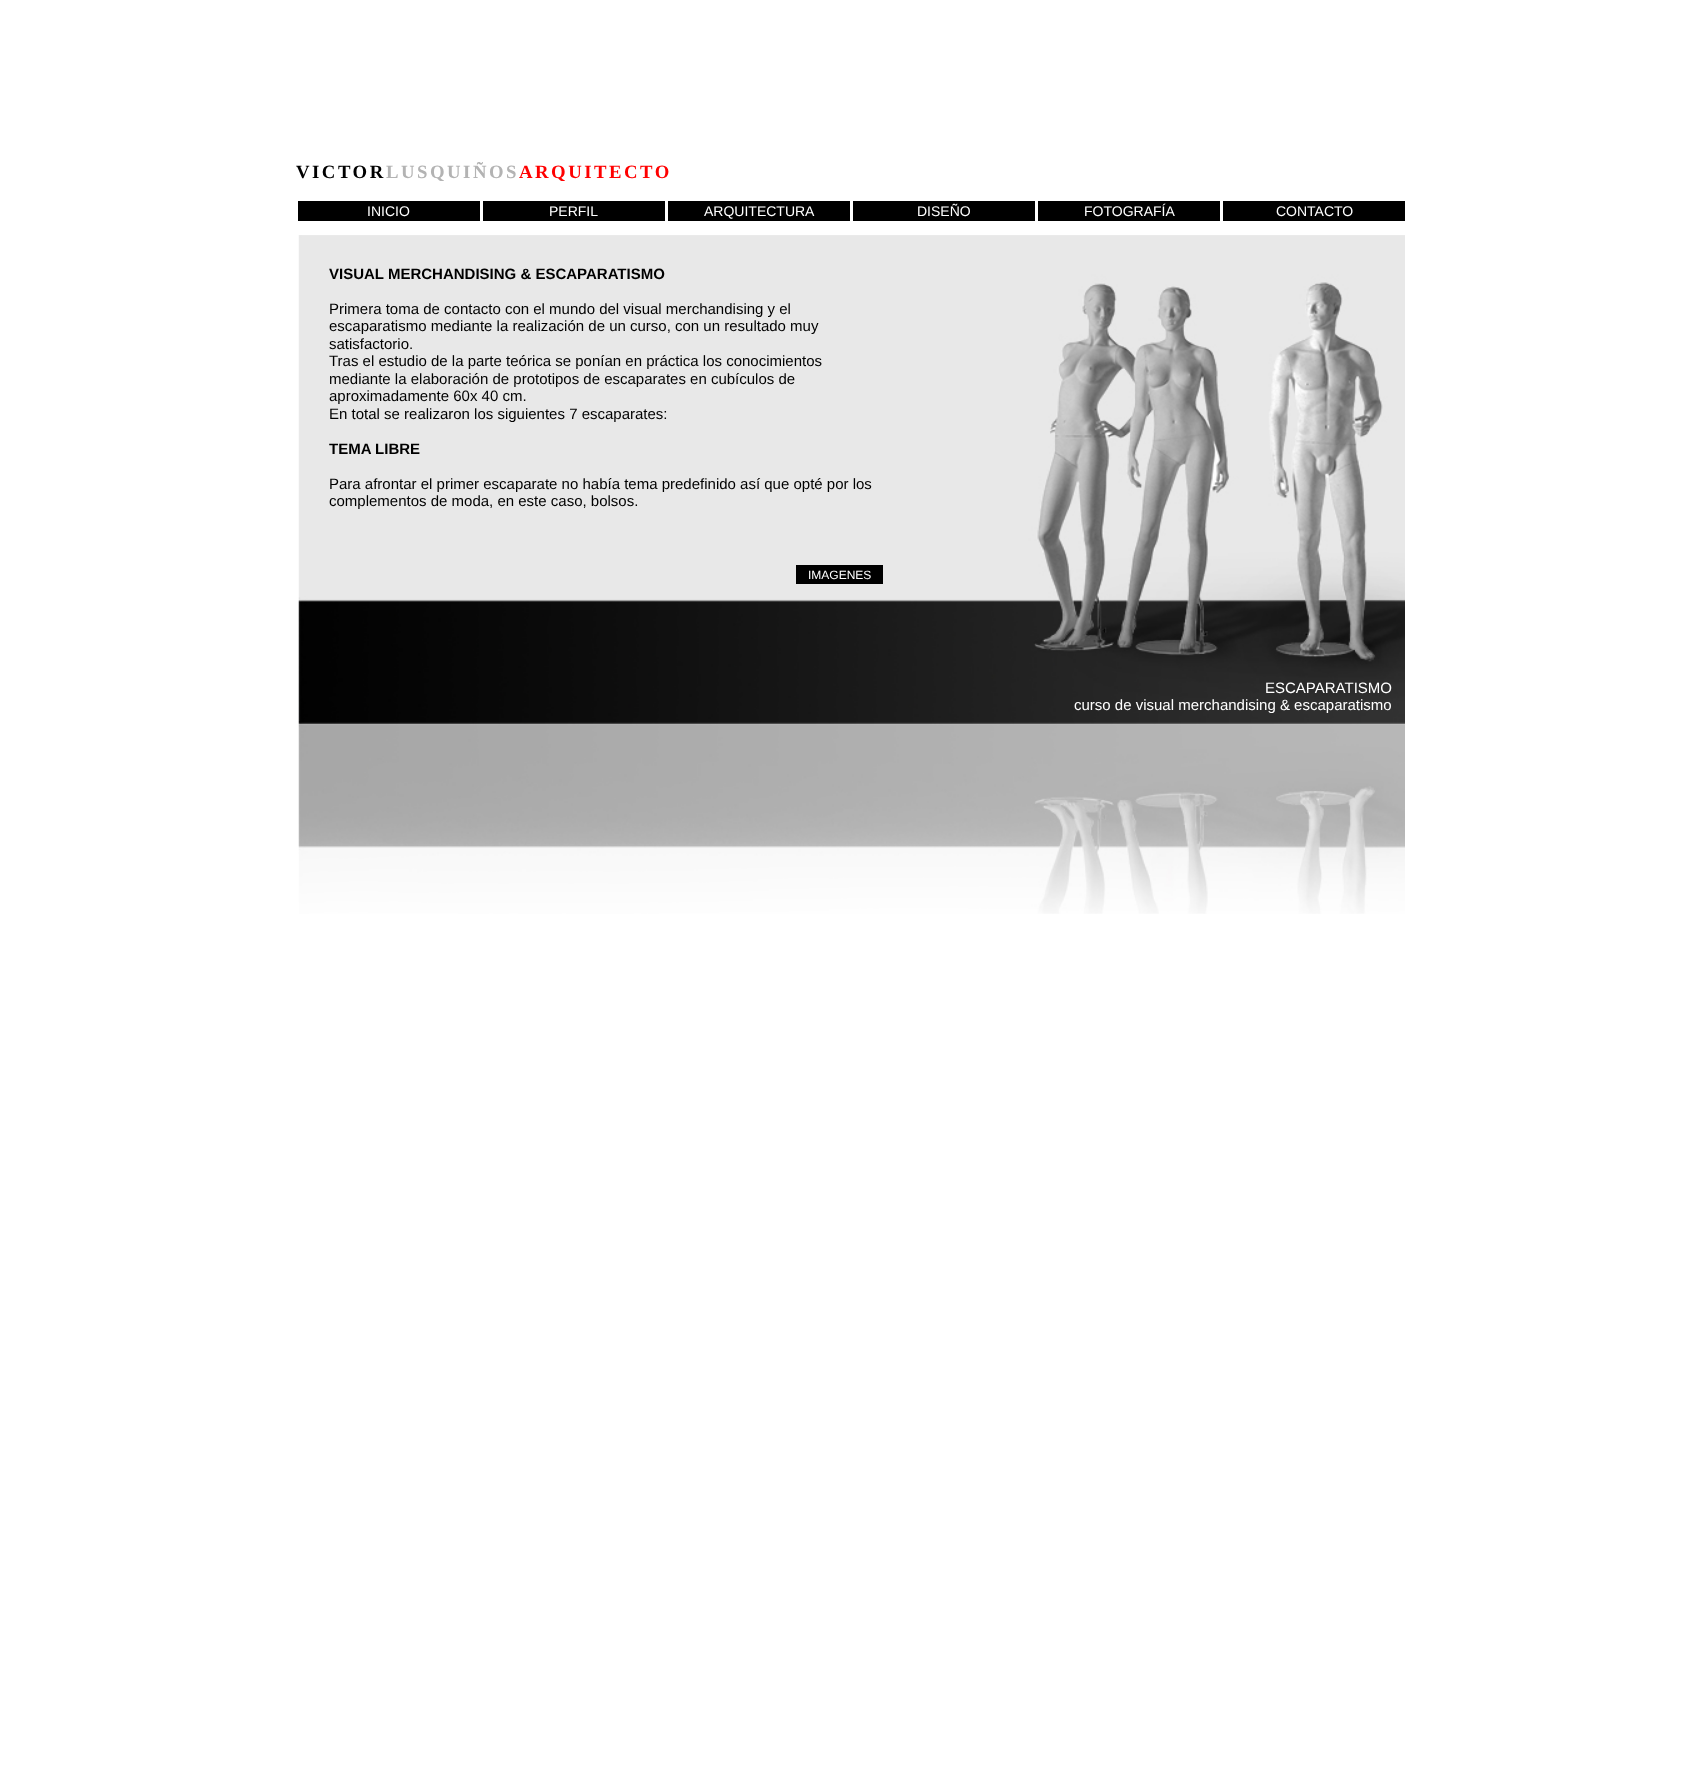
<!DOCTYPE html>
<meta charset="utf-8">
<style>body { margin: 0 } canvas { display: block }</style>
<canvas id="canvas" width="1703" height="1782"></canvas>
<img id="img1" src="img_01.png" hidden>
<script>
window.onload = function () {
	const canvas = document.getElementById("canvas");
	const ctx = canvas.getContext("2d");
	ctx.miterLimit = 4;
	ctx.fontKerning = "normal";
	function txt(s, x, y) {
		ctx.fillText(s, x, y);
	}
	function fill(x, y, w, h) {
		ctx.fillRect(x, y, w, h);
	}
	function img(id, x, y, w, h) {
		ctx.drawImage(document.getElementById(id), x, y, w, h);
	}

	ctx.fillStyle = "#FFFFFF";
	fill(0, 0, 1703, 1782);
	ctx.fillStyle = "#000000";
	fill(298, 201, 182, 20);
	fill(483, 201, 182, 20);
	fill(668, 201, 182, 20);
	fill(853, 201, 182, 20);
	fill(1038, 201, 182, 20);
	fill(1223, 201, 182, 20);
	img("img1", 298, 235, 1107, 679);
	fill(796, 565, 87, 19);
	ctx.letterSpacing = "2.5px";
	ctx.font = "bold 18.75px Liberation Serif";
	txt("VICTOR", 296, 178);
	ctx.fillStyle = "#B3B3B3";
	txt("LUSQUIÑOS", 386, 178);
	ctx.fillStyle = "#FF0000";
	txt("ARQUITECTO", 519, 178);
	ctx.letterSpacing = "0px";
	ctx.font = "14px Liberation Sans";
	ctx.fillStyle = "#FFFFFF";
	txt("INICIO", 367, 216);
	txt("PERFIL", 549, 216);
	txt("ARQUITECTURA", 704, 216);
	txt("DISEÑO", 917, 216);
	txt("FOTOGRAFÍA", 1084, 216);
	txt("CONTACTO", 1276, 216);
	ctx.font = "bold 15px Liberation Sans";
	ctx.fillStyle = "#000000";
	txt("VISUAL MERCHANDISING & ESCAPARATISMO", 329, 279);
	ctx.font = "15px Liberation Sans";
	txt("Primera toma de contacto con el mundo del visual merchandising y el", 329, 314);
	txt("escaparatismo mediante la realización de un curso, con un resultado muy", 329, 331);
	txt("satisfactorio.", 329, 349);
	txt("Tras el estudio de la parte teórica se ponían en práctica los conocimientos", 329, 366);
	txt("mediante la elaboración de prototipos de escaparates en cubículos de", 329, 384);
	txt("aproximadamente 60x 40 cm.", 329, 401);
	txt("En total se realizaron los siguientes 7 escaparates:", 329, 419);
	ctx.font = "bold 15px Liberation Sans";
	txt("TEMA LIBRE", 329, 454);
	ctx.font = "15px Liberation Sans";
	txt("Para afrontar el primer escaparate no había tema predefinido así que opté por los", 329, 489);
	txt("complementos de moda, en este caso, bolsos.", 329, 506);
	ctx.font = "12px Liberation Sans";
	ctx.fillStyle = "#FFFFFF";
	txt("IMAGENES", 808, 579);
	ctx.font = "15px Liberation Sans";
	txt("ESCAPARATISMO", 1265, 693);
	txt("curso de visual merchandising & escaparatismo", 1074, 710);
};
</script>
